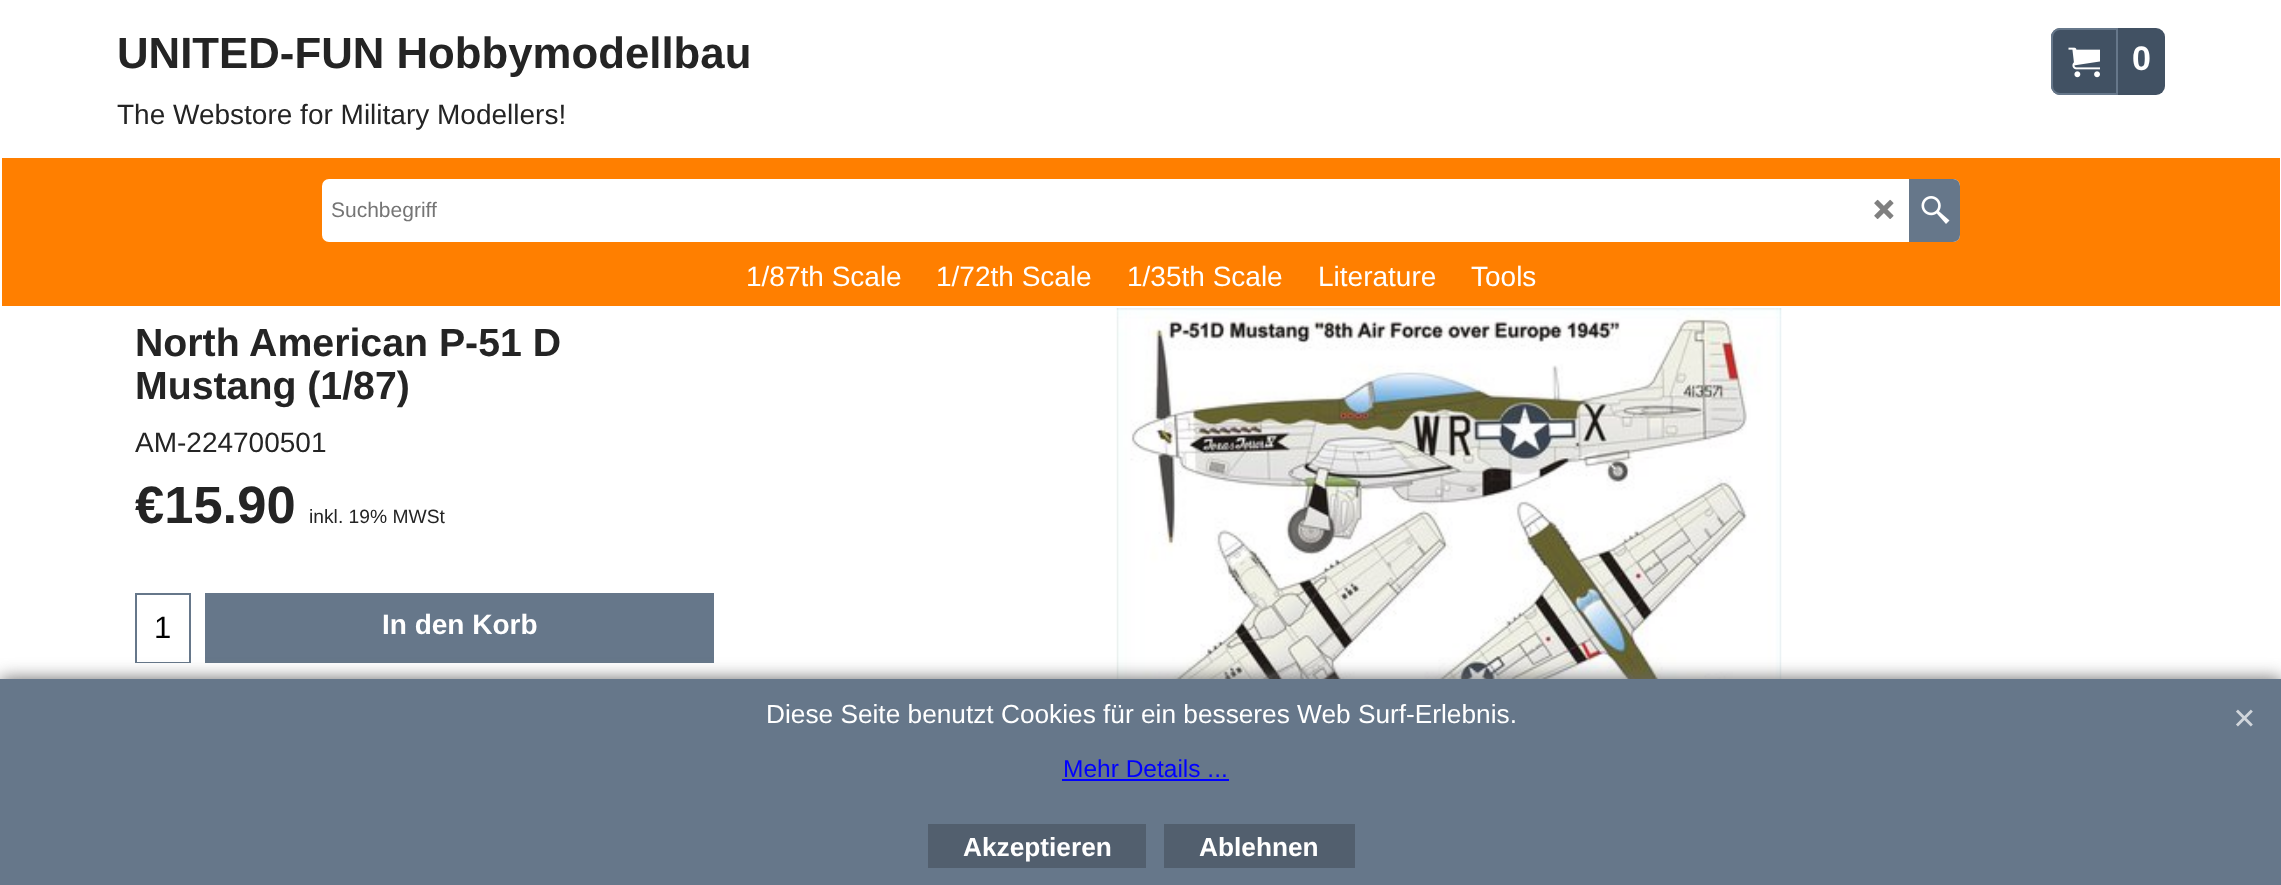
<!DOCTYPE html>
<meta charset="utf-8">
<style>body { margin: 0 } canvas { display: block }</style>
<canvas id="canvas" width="2281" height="885"></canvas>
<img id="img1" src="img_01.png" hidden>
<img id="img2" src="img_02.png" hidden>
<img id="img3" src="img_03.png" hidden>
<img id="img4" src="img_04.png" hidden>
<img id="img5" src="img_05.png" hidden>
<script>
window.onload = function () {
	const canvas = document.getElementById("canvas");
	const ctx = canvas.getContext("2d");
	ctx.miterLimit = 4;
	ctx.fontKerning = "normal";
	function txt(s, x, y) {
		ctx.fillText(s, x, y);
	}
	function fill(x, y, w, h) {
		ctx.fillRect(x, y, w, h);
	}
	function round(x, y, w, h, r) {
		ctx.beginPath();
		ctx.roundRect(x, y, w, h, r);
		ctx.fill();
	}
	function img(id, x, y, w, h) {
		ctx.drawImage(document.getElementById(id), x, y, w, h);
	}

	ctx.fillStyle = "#FFFFFF";
	fill(0, 0, 2281, 885);
	ctx.fillStyle = "#FF7F00";
	fill(2, 158, 2278, 148);
	ctx.fillStyle = "#415163";
	round(2051, 28, 114, 67, 9);
	ctx.beginPath();
	ctx.roundRect(2052, 29, 65, 65, [8, 0, 0, 8]);
	ctx.strokeStyle = "#66778A";
	ctx.lineWidth = 2;
	ctx.stroke();
	img("img1", 2068, 47, 32, 31);
	ctx.fillStyle = "#FFFFFF";
	round(322, 179, 1638, 63, 7);
	img("img2", 1874, 199, 20, 20);
	ctx.fillStyle = "#66778A";
	ctx.beginPath();
	ctx.roundRect(1909, 179, 51, 63, [0, 7, 7, 0]);
	ctx.fill();
	img("img3", 1921, 196, 29, 28);
	fill(135, 593, 56, 70);
	ctx.fillStyle = "#FFFFFF";
	fill(137, 595, 52, 67);
	ctx.fillStyle = "#66778A";
	fill(205, 593, 509, 70);
	img("img4", 1116, 308, 666, 371);
	ctx.fillStyle = "#666666";
	ctx.filter = "blur(9px)";
	ctx.beginPath();
	ctx.rect(0, 679, 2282, 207);
	ctx.fill();
	ctx.filter = "none";
	ctx.fillStyle = "#66778A";
	fill(0, 679, 2281, 206);
	ctx.fillStyle = "#0000FF";
	fill(1062, 779, 167, 2);
	img("img5", 2236, 709, 17, 18);
	ctx.fillStyle = "#525F6E";
	fill(928, 824, 218, 44);
	fill(1164, 824, 191, 44);
	ctx.font = "bold 43.75px Liberation Sans";
	ctx.fillStyle = "#242424";
	txt("UNITED-FUN Hobbymodellbau", 117, 68);
	ctx.font = "28px Liberation Sans";
	txt("The Webstore for Military Modellers!", 117, 124);
	ctx.font = "bold 34px Liberation Sans";
	ctx.fillStyle = "#FFFFFF";
	txt("0", 2132, 70);
	ctx.font = "21px Liberation Sans";
	ctx.fillStyle = "#757575";
	txt("Suchbegriff", 331, 217);
	ctx.font = "28px Liberation Sans";
	ctx.fillStyle = "#FFFFFF";
	txt("1/87th Scale", 746, 286);
	txt("1/72th Scale", 936, 286);
	txt("1/35th Scale", 1127, 286);
	txt("Literature", 1318, 286);
	txt("Tools", 1471, 286);
	ctx.font = "bold 39.25px Liberation Sans";
	ctx.fillStyle = "#242424";
	txt("North American P-51 D", 135, 356);
	txt("Mustang (1/87)", 135, 399);
	ctx.font = "28px Liberation Sans";
	txt("AM-224700501", 135, 452);
	ctx.font = "bold 52.5px Liberation Sans";
	txt("€15.90", 135, 523);
	ctx.font = "19.25px Liberation Sans";
	txt("inkl. 19% MWSt", 309, 523);
	ctx.font = "31px Liberation Sans";
	ctx.fillStyle = "#000000";
	txt("1", 154, 638);
	ctx.font = "bold 28px Liberation Sans";
	ctx.fillStyle = "#FFFFFF";
	txt("In den Korb", 382, 634);
	ctx.font = "26.25px Liberation Sans";
	txt("Diese Seite benutzt Cookies für ein besseres Web Surf-Erlebnis.", 766, 723);
	ctx.font = "24.5px Liberation Sans";
	ctx.fillStyle = "#0000FF";
	txt("Mehr Details ...", 1063, 777);
	ctx.font = "bold 26.25px Liberation Sans";
	ctx.fillStyle = "#FFFFFF";
	txt("Akzeptieren", 963, 856);
	txt("Ablehnen", 1199, 856);
};
</script>
